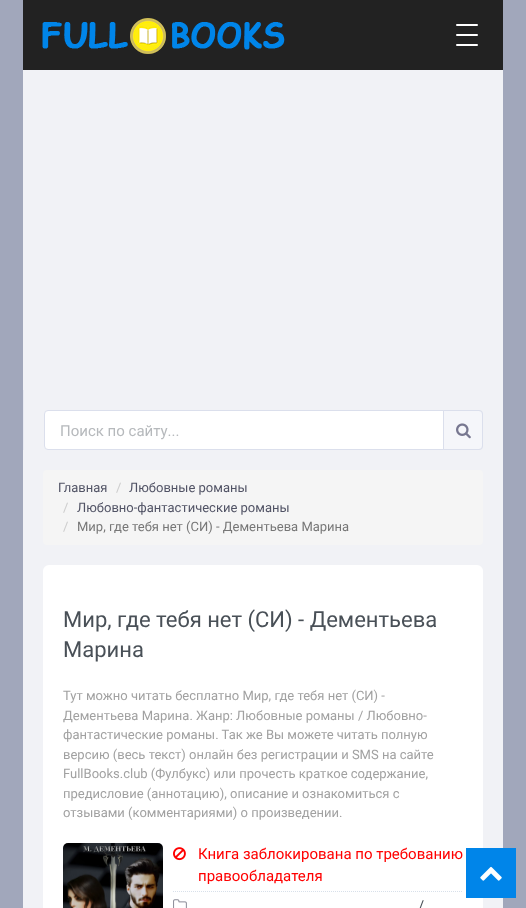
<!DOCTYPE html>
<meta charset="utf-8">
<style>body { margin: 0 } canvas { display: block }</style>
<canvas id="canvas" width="526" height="908"></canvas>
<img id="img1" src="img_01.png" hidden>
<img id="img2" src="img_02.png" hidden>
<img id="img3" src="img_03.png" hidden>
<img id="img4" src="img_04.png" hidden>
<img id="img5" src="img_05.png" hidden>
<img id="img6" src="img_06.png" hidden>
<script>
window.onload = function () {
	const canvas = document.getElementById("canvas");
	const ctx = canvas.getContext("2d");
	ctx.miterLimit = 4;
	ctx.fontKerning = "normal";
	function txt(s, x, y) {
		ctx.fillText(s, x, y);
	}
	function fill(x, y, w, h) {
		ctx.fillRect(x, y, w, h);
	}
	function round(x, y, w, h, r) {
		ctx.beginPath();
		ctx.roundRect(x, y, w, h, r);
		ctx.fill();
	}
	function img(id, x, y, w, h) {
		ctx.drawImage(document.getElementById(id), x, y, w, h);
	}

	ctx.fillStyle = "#A1A7BB";
	fill(0, 0, 526, 908);
	ctx.fillStyle = "#F1F2F6";
	fill(23, 70, 480, 838);
	ctx.fillStyle = "#222222";
	fill(23, 0, 480, 70);
	img("img1", 42, 18, 243, 36);
	ctx.fillStyle = "#FFFFFF";
	round(456, 24, 22, 2, 1);
	round(456, 34, 22, 2, 1);
	round(456, 44, 22, 2, 1);
	ctx.fillStyle = "#E8EAF2";
	fill(23, 390, 1, 60);
	ctx.fillStyle = "#FFFFFF";
	ctx.beginPath();
	ctx.roundRect(44.5, 410.5, 438, 39, 3.5);
	ctx.fill();
	ctx.strokeStyle = "#DBDFEC";
	ctx.stroke();
	ctx.fillStyle = "#F5F6FA";
	ctx.beginPath();
	ctx.roundRect(443.5, 410.5, 39, 39, [0, 3.5, 3.5, 0]);
	ctx.fill();
	ctx.stroke();
	img("img2", 456, 423, 15, 16);
	ctx.fillStyle = "#F5F5F5";
	round(43, 470, 440, 75, 4);
	ctx.fillStyle = "#FFFFFF";
	round(43, 565, 440, 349, 6);
	img("img3", 63, 843, 100, 65);
	ctx.beginPath();
	ctx.moveTo(173, 891.5);
	ctx.lineTo(463, 891.5);
	ctx.strokeStyle = "#D8E0EA";
	ctx.setLineDash([1, 1]);
	ctx.stroke();
	img("img4", 173, 847, 13, 14);
	img("img5", 173, 899, 14, 9);
	ctx.fillStyle = "#0085E9";
	fill(466, 848, 50, 50);
	img("img6", 480, 866, 22, 15);
	ctx.font = "15px Roboto";
	ctx.fillStyle = "#B6B9BC";
	txt("Поиск по сайту...", 60, 436);
	ctx.font = "13px Roboto";
	ctx.fillStyle = "#515365";
	txt("Главная", 58, 492);
	ctx.fillStyle = "#CCCCCC";
	txt("/", 116, 492);
	ctx.fillStyle = "#515365";
	txt("Любовные романы", 129, 492);
	ctx.fillStyle = "#CCCCCC";
	txt("/", 63, 512);
	ctx.fillStyle = "#515365";
	txt("Любовно-фантастические романы", 77, 512);
	ctx.fillStyle = "#CCCCCC";
	txt("/", 63, 531);
	ctx.fillStyle = "#777777";
	txt("Мир, где тебя нет (СИ) - Дементьева Марина", 77, 531);
	ctx.font = "22px Roboto";
	ctx.fillStyle = "#495057";
	txt("Мир, где тебя нет (СИ) - Дементьева", 63, 627);
	txt("Марина", 63, 657);
	ctx.font = "13px Roboto";
	ctx.fillStyle = "#A1A1A1";
	txt("Тут можно читать бесплатно Мир, где тебя нет (СИ) -", 63, 700);
	txt("Дементьева Марина. Жанр: Любовные романы / Любовно-", 63, 720);
	txt("фантастические романы. Так же Вы можете читать полную", 63, 739);
	txt("версию (весь текст) онлайн без регистрации и SMS на сайте", 63, 759);
	txt("FullBooks.club (Фулбукс) или прочесть краткое содержание,", 63, 778);
	txt("предисловие (аннотацию), описание и ознакомиться с", 63, 798);
	txt("отзывами (комментариями) о произведении.", 63, 817);
	ctx.font = "15px Roboto";
	ctx.fillStyle = "#FF0000";
	txt("Книга заблокирована по требованию", 198, 859);
	txt("правообладателя", 198, 881);
	ctx.fillStyle = "#495057";
	txt("/", 418, 911);
};
</script>
